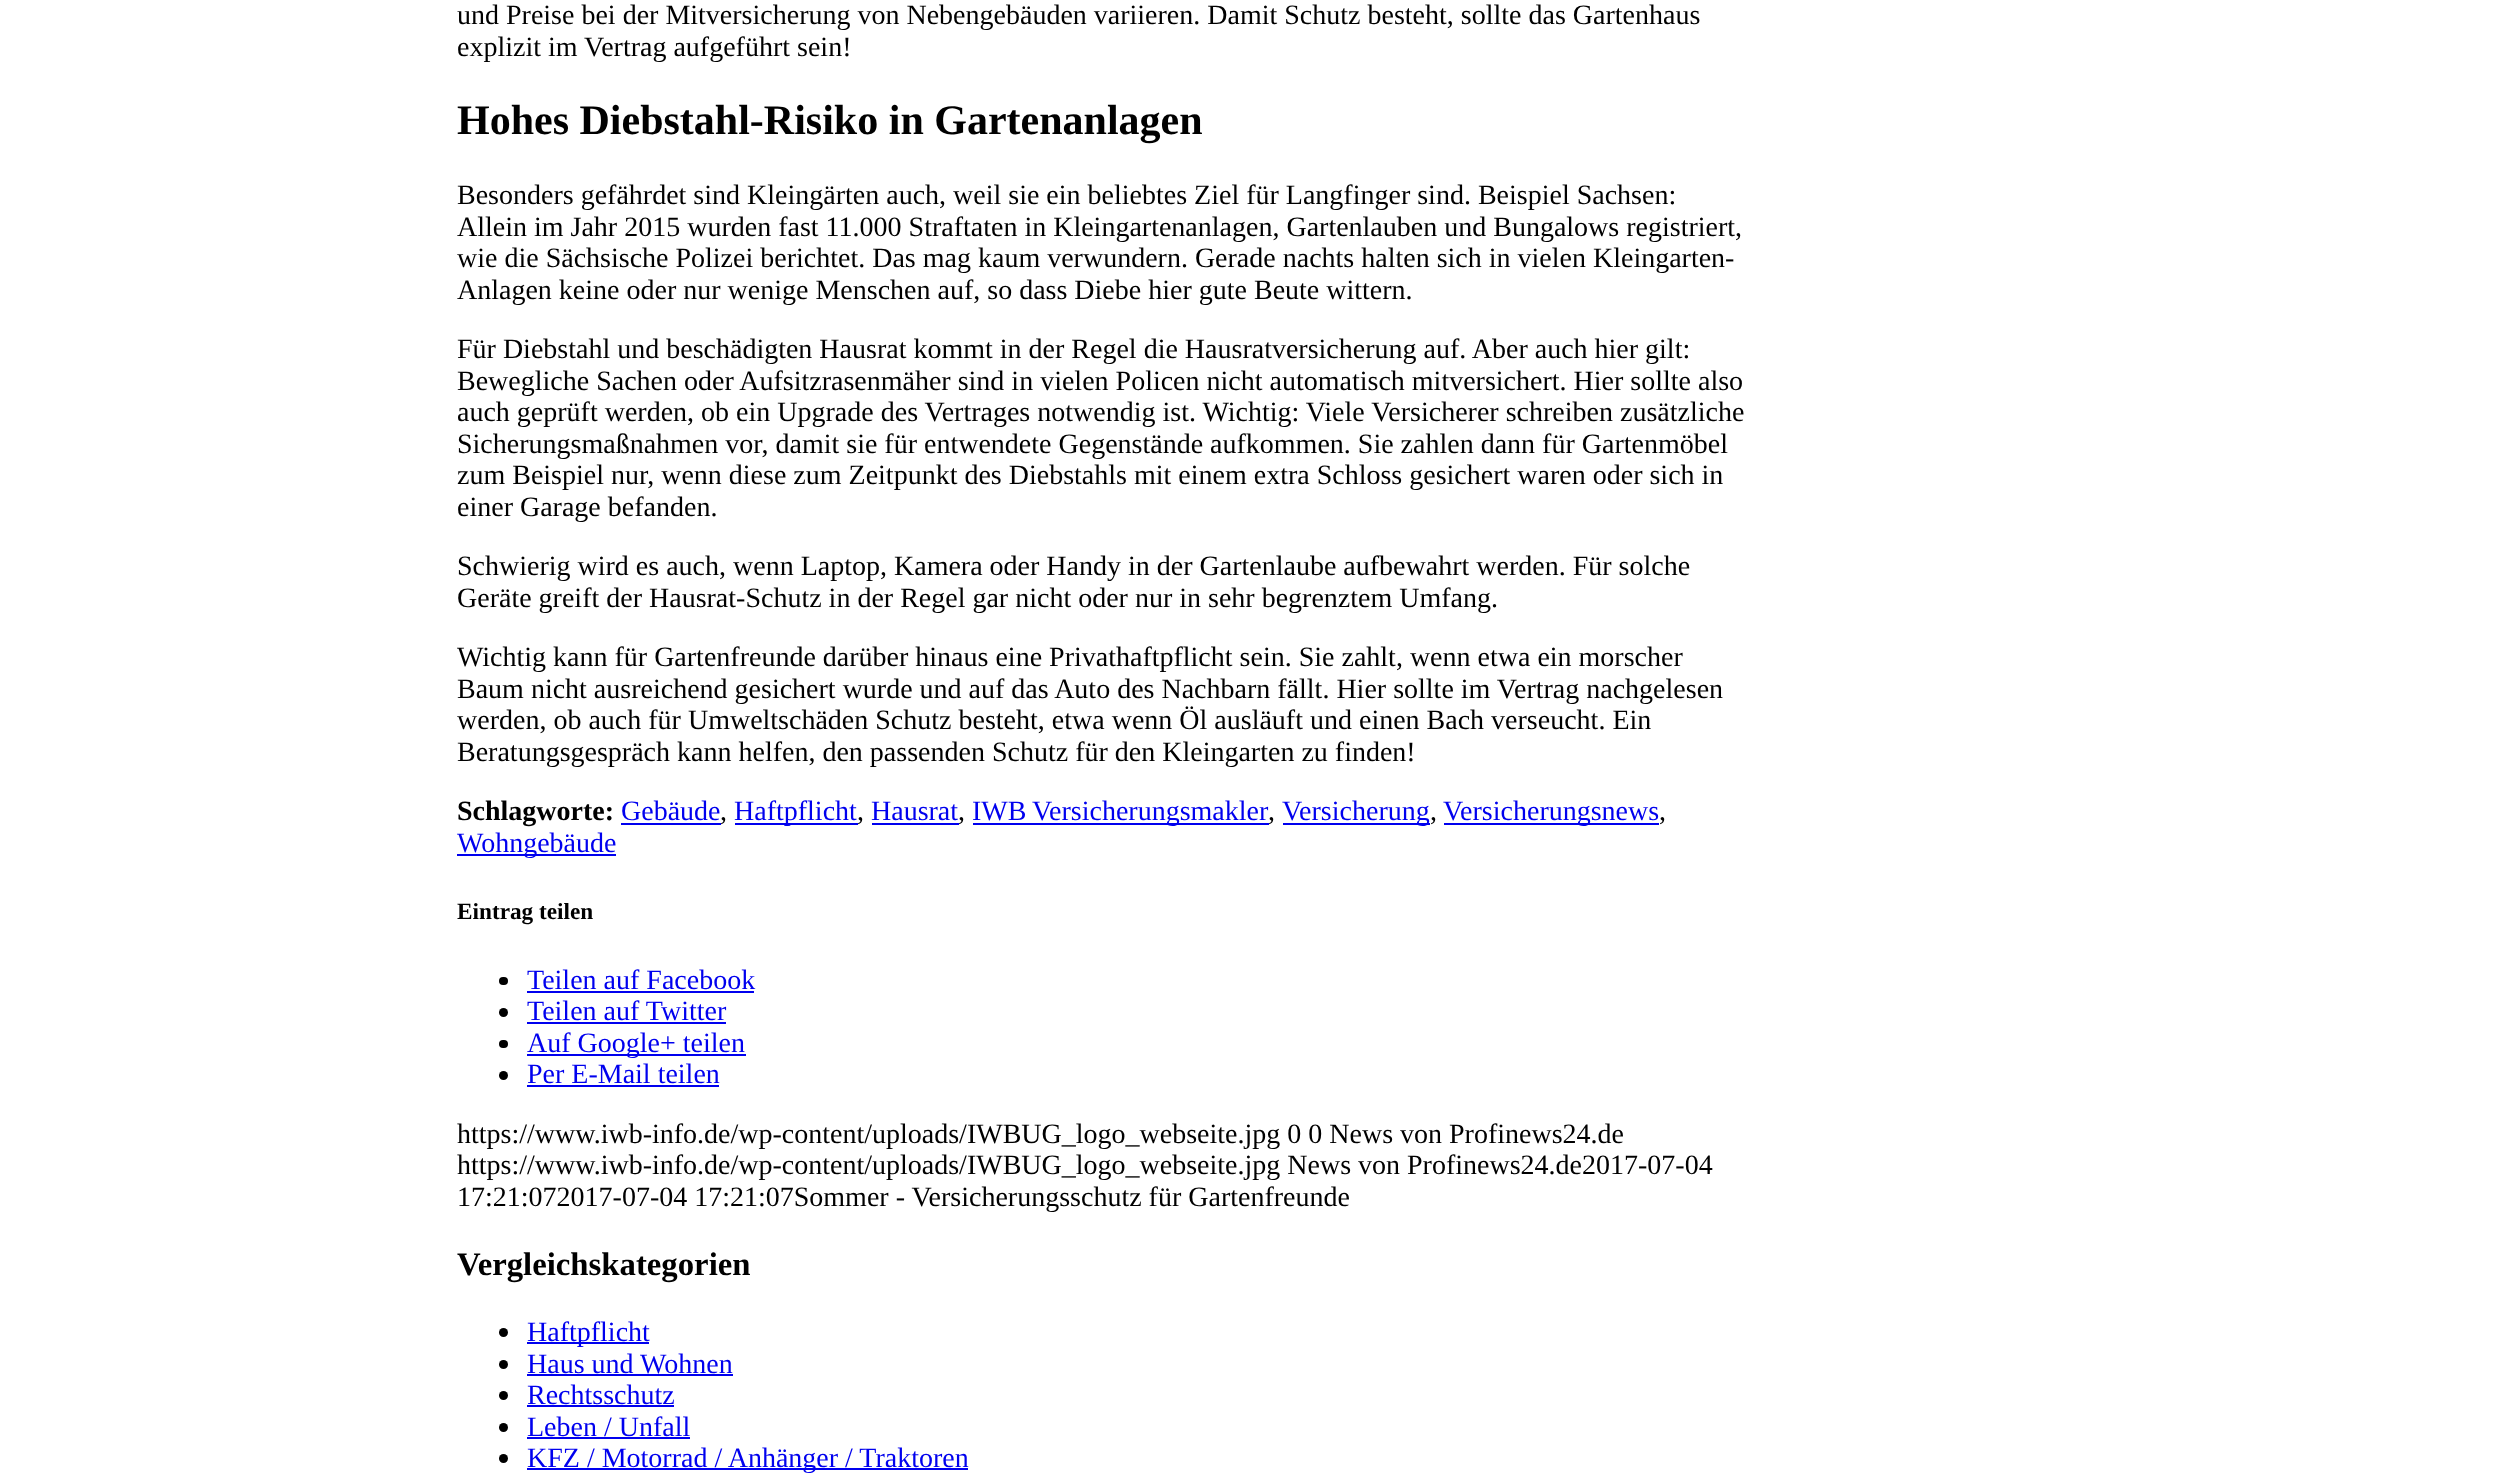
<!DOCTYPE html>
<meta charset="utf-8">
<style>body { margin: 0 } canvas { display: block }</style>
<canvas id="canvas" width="2506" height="1473"></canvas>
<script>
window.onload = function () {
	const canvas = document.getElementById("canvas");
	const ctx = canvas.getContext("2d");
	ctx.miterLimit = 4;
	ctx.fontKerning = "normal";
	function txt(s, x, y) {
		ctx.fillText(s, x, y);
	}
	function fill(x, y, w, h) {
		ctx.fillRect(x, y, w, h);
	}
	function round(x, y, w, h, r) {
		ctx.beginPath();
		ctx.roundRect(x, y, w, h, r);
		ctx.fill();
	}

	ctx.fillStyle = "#FFFFFF";
	fill(0, 0, 2506, 1473);
	ctx.fillStyle = "#0000EE";
	fill(621, 823, 100, 2);
	fill(735, 823, 123, 2);
	fill(872, 823, 87, 2);
	fill(973, 823, 296, 2);
	fill(1283, 823, 147, 2);
	fill(1444, 823, 215, 2);
	fill(457, 854, 159, 2);
	ctx.fillStyle = "#000000";
	round(499, 977, 9, 8, 4);
	ctx.fillStyle = "#0000EE";
	fill(527, 991, 227, 2);
	ctx.fillStyle = "#000000";
	ctx.beginPath();
	ctx.arc(503.5, 1012.5, 4.5, 0, Math.PI * 2);
	ctx.fill();
	ctx.fillStyle = "#0000EE";
	fill(527, 1022, 199, 2);
	ctx.fillStyle = "#000000";
	round(499, 1040, 9, 8, 4);
	ctx.fillStyle = "#0000EE";
	fill(527, 1054, 219, 2);
	ctx.fillStyle = "#000000";
	ctx.beginPath();
	ctx.arc(503.5, 1075.5, 4.5, 0, Math.PI * 2);
	ctx.fill();
	ctx.fillStyle = "#0000EE";
	fill(527, 1085, 192, 2);
	ctx.fillStyle = "#000000";
	ctx.beginPath();
	ctx.arc(503.5, 1332.5, 4.5, 0, Math.PI * 2);
	ctx.fill();
	ctx.fillStyle = "#0000EE";
	fill(527, 1342, 122, 2);
	ctx.fillStyle = "#000000";
	ctx.beginPath();
	ctx.arc(503.5, 1364.5, 4.5, 0, Math.PI * 2);
	ctx.fill();
	ctx.fillStyle = "#0000EE";
	fill(527, 1374, 206, 2);
	ctx.fillStyle = "#000000";
	ctx.beginPath();
	ctx.arc(503.5, 1395.5, 4.5, 0, Math.PI * 2);
	ctx.fill();
	ctx.fillStyle = "#0000EE";
	fill(527, 1405, 147, 2);
	ctx.fillStyle = "#000000";
	ctx.beginPath();
	ctx.arc(503.5, 1427.5, 4.5, 0, Math.PI * 2);
	ctx.fill();
	ctx.fillStyle = "#0000EE";
	fill(527, 1437, 163, 2);
	ctx.fillStyle = "#000000";
	ctx.beginPath();
	ctx.arc(503.5, 1458.5, 4.5, 0, Math.PI * 2);
	ctx.fill();
	ctx.fillStyle = "#0000EE";
	fill(527, 1468, 441, 2);
	ctx.font = "28px Liberation Serif";
	ctx.fillStyle = "#000000";
	txt("und Preise bei der Mitversicherung von Nebengebäuden variieren. Damit Schutz besteht, sollte das Gartenhaus", 457, 24);
	txt("explizit im Vertrag aufgeführt sein!", 457, 56);
	ctx.font = "bold 42px Liberation Serif";
	txt("Hohes Diebstahl-Risiko in Gartenanlagen", 457, 134);
	ctx.font = "28px Liberation Serif";
	txt("Besonders gefährdet sind Kleingärten auch, weil sie ein beliebtes Ziel für Langfinger sind. Beispiel Sachsen:", 457, 204);
	txt("Allein im Jahr 2015 wurden fast 11.000 Straftaten in Kleingartenanlagen, Gartenlauben und Bungalows registriert,", 457, 236);
	txt("wie die Sächsische Polizei berichtet. Das mag kaum verwundern. Gerade nachts halten sich in vielen Kleingarten-", 457, 267);
	txt("Anlagen keine oder nur wenige Menschen auf, so dass Diebe hier gute Beute wittern.", 457, 299);
	txt("Für Diebstahl und beschädigten Hausrat kommt in der Regel die Hausratversicherung auf. Aber auch hier gilt:", 457, 358);
	txt("Bewegliche Sachen oder Aufsitzrasenmäher sind in vielen Policen nicht automatisch mitversichert. Hier sollte also", 457, 390);
	txt("auch geprüft werden, ob ein Upgrade des Vertrages notwendig ist. Wichtig: Viele Versicherer schreiben zusätzliche", 457, 421);
	txt("Sicherungsmaßnahmen vor, damit sie für entwendete Gegenstände aufkommen. Sie zahlen dann für Gartenmöbel", 457, 453);
	txt("zum Beispiel nur, wenn diese zum Zeitpunkt des Diebstahls mit einem extra Schloss gesichert waren oder sich in", 457, 484);
	txt("einer Garage befanden.", 457, 516);
	txt("Schwierig wird es auch, wenn Laptop, Kamera oder Handy in der Gartenlaube aufbewahrt werden. Für solche", 457, 575);
	txt("Geräte greift der Hausrat-Schutz in der Regel gar nicht oder nur in sehr begrenztem Umfang.", 457, 607);
	txt("Wichtig kann für Gartenfreunde darüber hinaus eine Privathaftpflicht sein. Sie zahlt, wenn etwa ein morscher", 457, 666);
	txt("Baum nicht ausreichend gesichert wurde und auf das Auto des Nachbarn fällt. Hier sollte im Vertrag nachgelesen", 457, 698);
	txt("werden, ob auch für Umweltschäden Schutz besteht, etwa wenn Öl ausläuft und einen Bach verseucht. Ein", 457, 729);
	txt("Beratungsgespräch kann helfen, den passenden Schutz für den Kleingarten zu finden!", 457, 761);
	ctx.font = "bold 28px Liberation Serif";
	txt("Schlagworte:", 457, 820);
	ctx.font = "28px Liberation Serif";
	ctx.fillStyle = "#0000EE";
	txt("Gebäude", 621, 820);
	ctx.fillStyle = "#000000";
	txt(",", 720, 820);
	ctx.fillStyle = "#0000EE";
	txt("Haftpflicht", 734, 820);
	ctx.fillStyle = "#000000";
	txt(",", 857, 820);
	ctx.fillStyle = "#0000EE";
	txt("Hausrat", 871, 820);
	ctx.fillStyle = "#000000";
	txt(",", 958, 820);
	ctx.wordSpacing = "-1px";
	ctx.fillStyle = "#0000EE";
	txt("IWB Versicherungsmakler", 972, 820);
	ctx.wordSpacing = "0px";
	ctx.fillStyle = "#000000";
	txt(",", 1268, 820);
	ctx.fillStyle = "#0000EE";
	txt("Versicherung", 1282, 820);
	ctx.fillStyle = "#000000";
	txt(",", 1430, 820);
	ctx.fillStyle = "#0000EE";
	txt("Versicherungsnews", 1443, 820);
	ctx.fillStyle = "#000000";
	txt(",", 1659, 820);
	ctx.fillStyle = "#0000EE";
	txt("Wohngebäude", 457, 852);
	ctx.font = "bold 23.25px Liberation Serif";
	ctx.fillStyle = "#000000";
	txt("Eintrag teilen", 457, 919);
	ctx.font = "28px Liberation Serif";
	ctx.fillStyle = "#0000EE";
	txt("Teilen auf Facebook", 527, 989);
	txt("Teilen auf Twitter", 527, 1020);
	txt("Auf Google+ teilen", 527, 1052);
	txt("Per E-Mail teilen", 527, 1083);
	ctx.fillStyle = "#000000";
	txt("https://www.iwb-info.de/wp-content/uploads/IWBUG_logo_webseite.jpg 0 0 News von Profinews24.de", 457, 1143);
	txt("https://www.iwb-info.de/wp-content/uploads/IWBUG_logo_webseite.jpg News von Profinews24.de2017-07-04", 457, 1174);
	txt("17:21:072017-07-04 17:21:07Sommer - Versicherungsschutz für Gartenfreunde", 457, 1206);
	ctx.font = "bold 32.75px Liberation Serif";
	txt("Vergleichskategorien", 457, 1275);
	ctx.font = "28px Liberation Serif";
	ctx.fillStyle = "#0000EE";
	txt("Haftpflicht", 527, 1341);
	txt("Haus und Wohnen", 527, 1373);
	txt("Rechtsschutz", 527, 1404);
	txt("Leben / Unfall", 527, 1436);
	txt("KFZ / Motorrad / Anhänger / Traktoren", 527, 1467);
};
</script>
